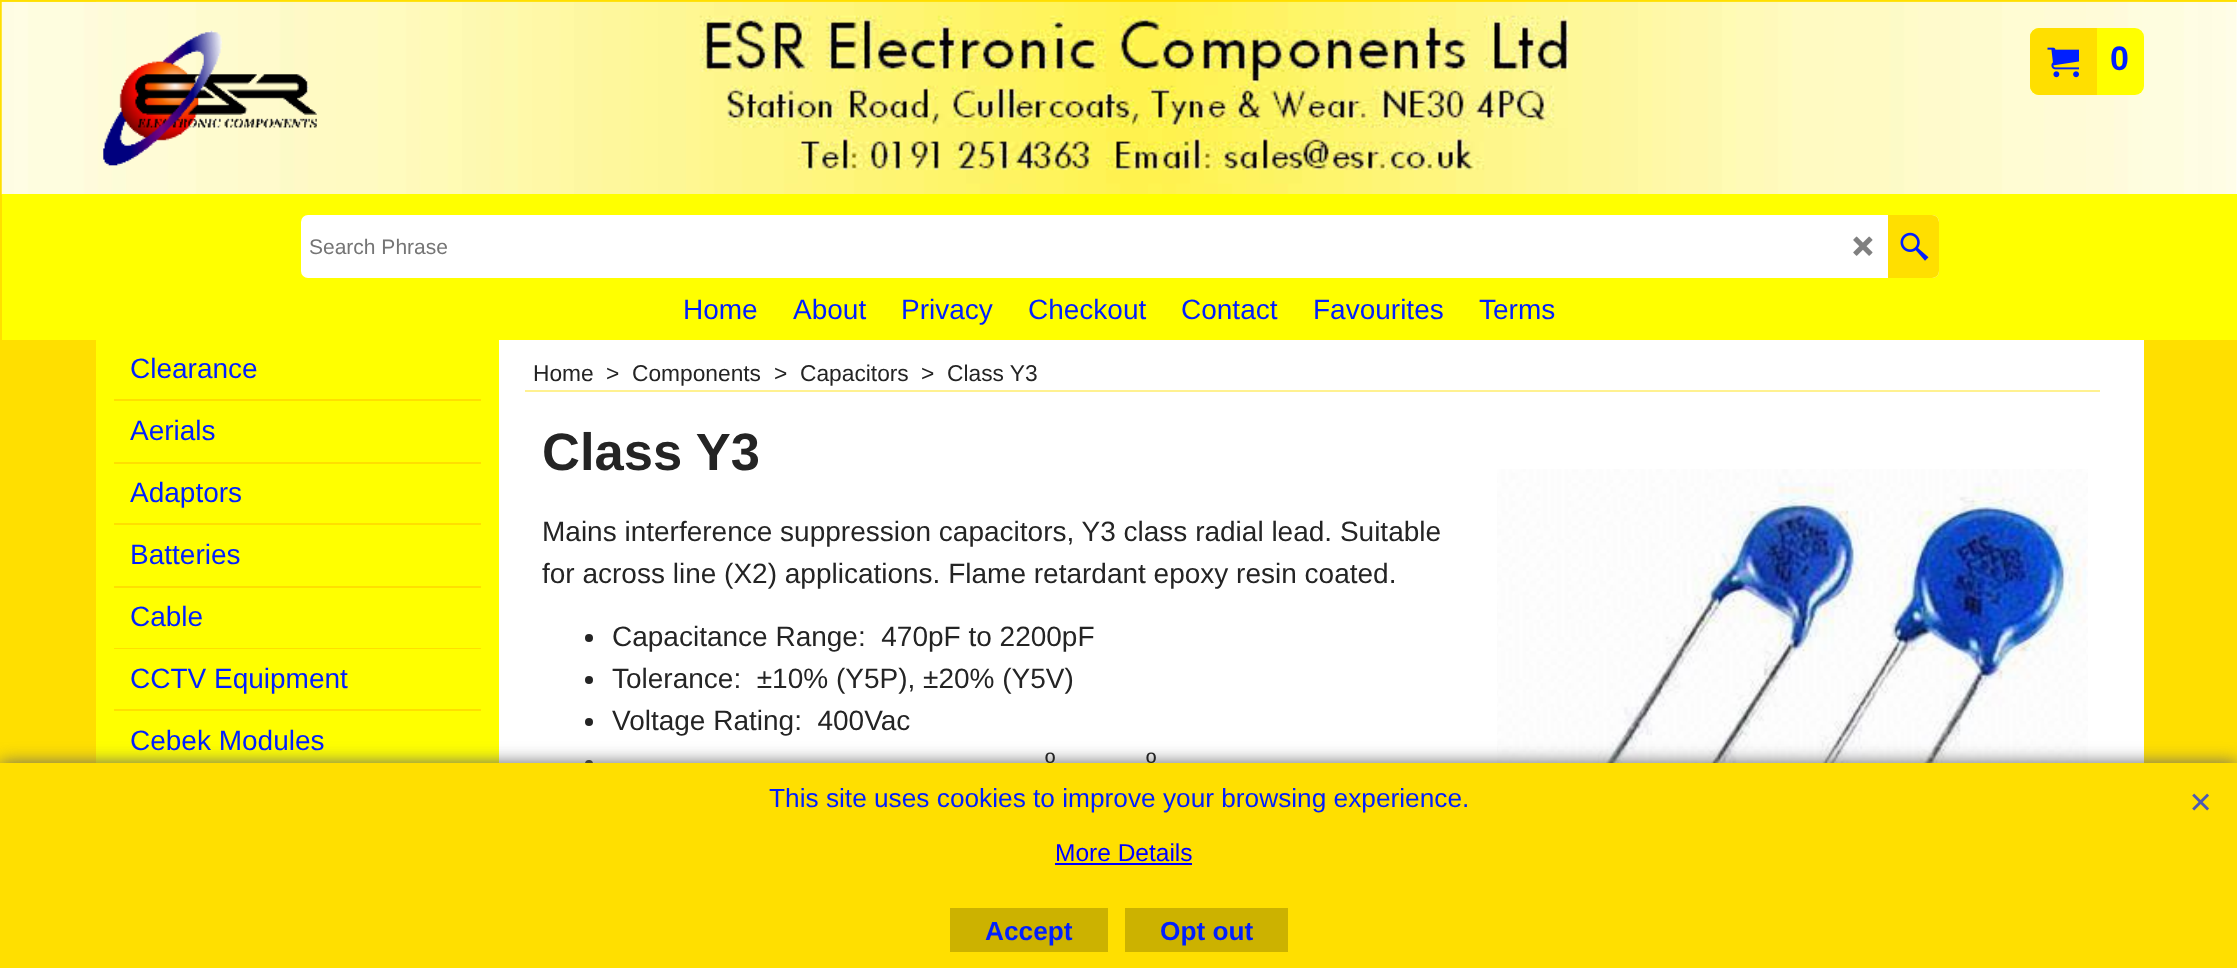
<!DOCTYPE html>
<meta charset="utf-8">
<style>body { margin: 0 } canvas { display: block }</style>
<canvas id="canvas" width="2237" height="968"></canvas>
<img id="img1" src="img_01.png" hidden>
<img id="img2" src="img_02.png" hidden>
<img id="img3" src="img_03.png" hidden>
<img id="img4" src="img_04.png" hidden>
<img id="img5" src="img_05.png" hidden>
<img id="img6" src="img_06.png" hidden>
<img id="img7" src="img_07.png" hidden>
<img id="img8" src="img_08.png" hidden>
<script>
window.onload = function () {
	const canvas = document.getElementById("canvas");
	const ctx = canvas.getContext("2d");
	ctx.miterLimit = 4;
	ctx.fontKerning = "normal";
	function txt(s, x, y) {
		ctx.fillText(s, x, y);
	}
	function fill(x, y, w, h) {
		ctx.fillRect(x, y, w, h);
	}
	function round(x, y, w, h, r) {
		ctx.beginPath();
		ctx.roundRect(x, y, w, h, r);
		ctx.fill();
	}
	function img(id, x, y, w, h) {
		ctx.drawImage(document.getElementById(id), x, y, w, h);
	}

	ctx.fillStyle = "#FFDF00";
	fill(0, 0, 2237, 968);
	img("img1", 96, 1, 2048, 1);
	ctx.fillStyle = "#FFFFFF";
	fill(2236, 2, 1, 192);
	img("img2", 1, 1, 2236, 194);
	img("img3", 103, 30, 214, 136);
	ctx.fillStyle = "#FFFF00";
	round(2030, 28, 114, 67, 9);
	ctx.fillStyle = "#FFDF00";
	ctx.beginPath();
	ctx.roundRect(2031, 29, 65, 65, [8, 0, 0, 8]);
	ctx.fill();
	ctx.strokeStyle = "#FFDF00";
	ctx.lineWidth = 2;
	ctx.stroke();
	img("img4", 2047, 47, 32, 31);
	ctx.fillStyle = "#FFFF00";
	fill(2, 194, 2235, 146);
	ctx.fillStyle = "#FFFFFF";
	round(301, 215, 1638, 63, 7);
	img("img5", 1853, 236, 20, 20);
	ctx.fillStyle = "#FFDF00";
	ctx.beginPath();
	ctx.roundRect(1888, 215, 51, 63, [0, 7, 7, 0]);
	ctx.fill();
	img("img6", 1900, 232, 29, 29);
	ctx.fillStyle = "#FFFFFF";
	fill(499, 340, 1645, 423);
	ctx.fillStyle = "#FFFF00";
	fill(96, 340, 403, 423);
	ctx.fillStyle = "#FFDF00";
	fill(114, 399, 367, 2);
	fill(114, 462, 367, 2);
	fill(114, 523, 367, 2);
	fill(114, 586, 367, 2);
	fill(114, 648, 367, 1);
	fill(114, 709, 367, 2);
	ctx.fillStyle = "#FFF191";
	fill(525, 390, 1575, 2);
	ctx.fillStyle = "#242424";
	ctx.beginPath();
	ctx.arc(589, 638, 4, 0, Math.PI * 2);
	ctx.fill();
	ctx.beginPath();
	ctx.arc(589, 680, 4, 0, Math.PI * 2);
	ctx.fill();
	ctx.beginPath();
	ctx.arc(589, 722, 4, 0, Math.PI * 2);
	ctx.fill();
	ctx.beginPath();
	ctx.arc(589, 764, 4, 0, Math.PI * 2);
	ctx.fill();
	img("img7", 1497, 469, 591, 294);
	ctx.fillStyle = "#666666";
	ctx.filter = "blur(9px)";
	ctx.beginPath();
	ctx.rect(0, 763, 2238, 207);
	ctx.fill();
	ctx.filter = "none";
	ctx.font = "bold 34px Liberation Sans";
	ctx.fillStyle = "#001FFF";
	txt("0", 2110, 70);
	ctx.font = "21px Liberation Sans";
	ctx.fillStyle = "#757575";
	txt("Search Phrase", 309, 254);
	ctx.font = "28px Liberation Sans";
	ctx.fillStyle = "#001FFF";
	txt("Home", 683, 319);
	txt("About", 793, 319);
	txt("Privacy", 901, 319);
	txt("Checkout", 1028, 319);
	txt("Contact", 1181, 319);
	txt("Favourites", 1313, 319);
	txt("Terms", 1479, 319);
	txt("Clearance", 130, 378);
	txt("Aerials", 130, 440);
	txt("Adaptors", 130, 502);
	txt("Batteries", 130, 564);
	txt("Cable", 130, 626);
	txt("CCTV Equipment", 130, 688);
	txt("Cebek Modules", 130, 750);
	ctx.font = "22.75px Liberation Sans";
	ctx.fillStyle = "#242424";
	txt("Home", 533, 381);
	txt(">", 606, 381);
	txt("Components", 632, 381);
	txt(">", 774, 381);
	txt("Capacitors", 800, 381);
	txt(">", 921, 381);
	txt("Class Y3", 947, 381);
	ctx.font = "bold 52.5px Liberation Sans";
	txt("Class Y3", 542, 470);
	ctx.font = "28px Liberation Sans";
	txt("Mains interference suppression capacitors, Y3 class radial lead. Suitable", 542, 541);
	txt("for across line (X2) applications. Flame retardant epoxy resin coated.", 542, 583);
	txt("Capacitance Range:  470pF to 2200pF", 612, 646);
	txt("Tolerance:  ±10% (Y5P), ±20% (Y5V)", 612, 688);
	txt("Voltage Rating:  400Vac", 612, 730);
	txt("º", 1045, 772);
	txt("º", 1146, 772);
	ctx.fillStyle = "#FFDF00";
	fill(0, 763, 2237, 205);
	ctx.font = "26.25px Liberation Sans";
	ctx.fillStyle = "#001FFF";
	txt("This site uses cookies to improve your browsing experience.", 769, 807);
	ctx.font = "24.5px Liberation Sans";
	ctx.fillStyle = "#0000FF";
	txt("More Details", 1055, 861);
	fill(1055, 863, 137, 2);
	img("img8", 2192, 793, 17, 18);
	ctx.fillStyle = "#CCB200";
	fill(950, 908, 158, 44);
	ctx.font = "bold 26.25px Liberation Sans";
	ctx.fillStyle = "#001FFF";
	txt("Accept", 985, 940);
	ctx.fillStyle = "#CCB200";
	fill(1125, 908, 163, 44);
	ctx.fillStyle = "#001FFF";
	txt("Opt out", 1160, 940);
};
</script>
